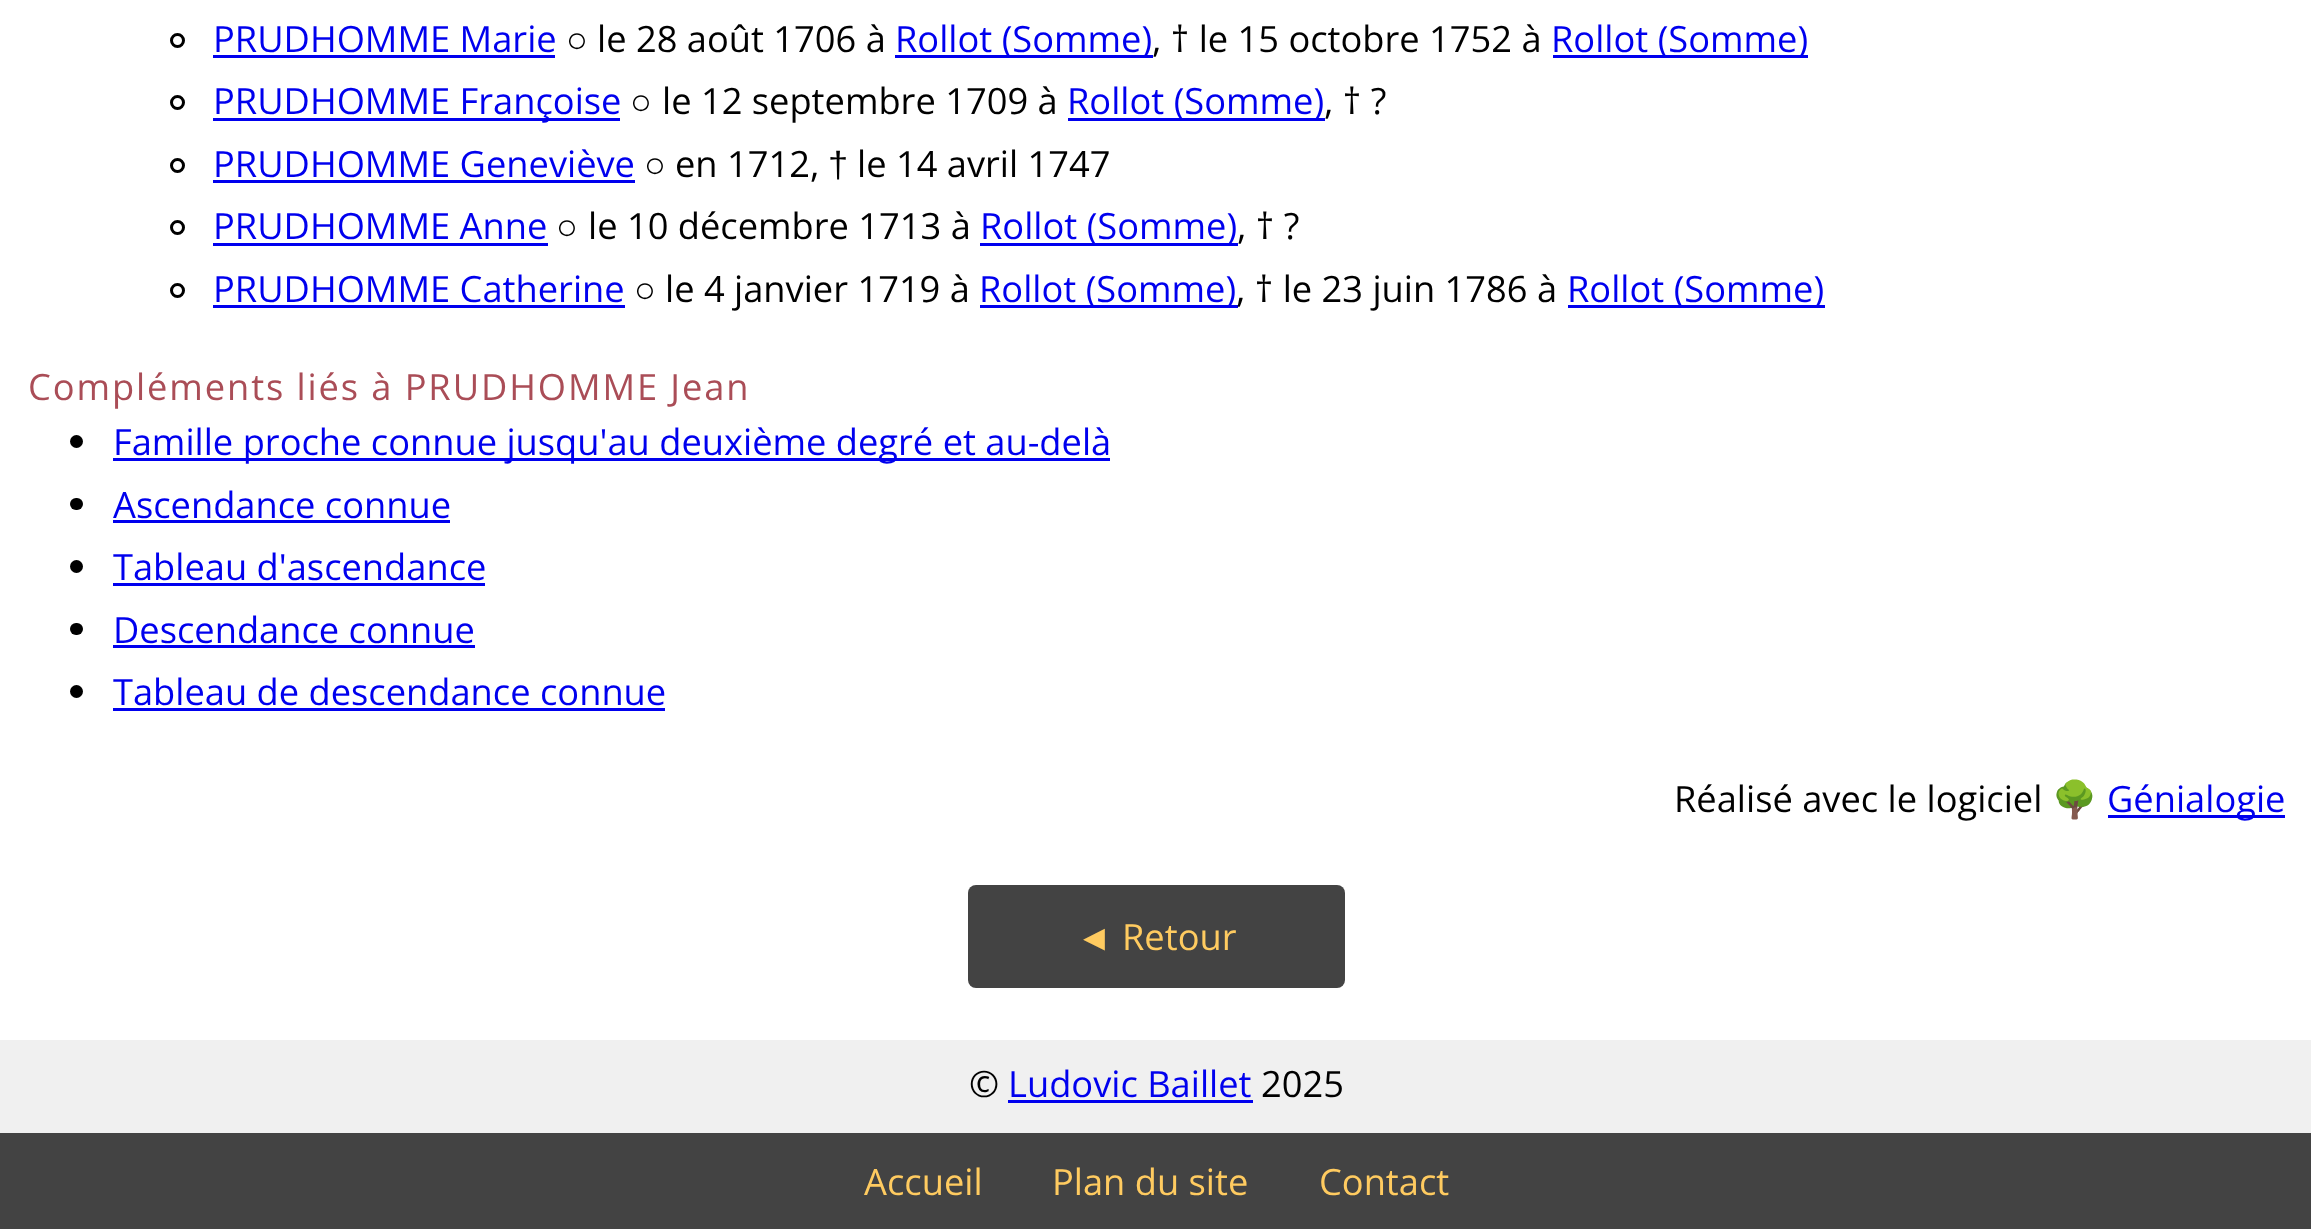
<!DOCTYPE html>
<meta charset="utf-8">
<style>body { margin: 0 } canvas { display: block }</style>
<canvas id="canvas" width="2311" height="1229"></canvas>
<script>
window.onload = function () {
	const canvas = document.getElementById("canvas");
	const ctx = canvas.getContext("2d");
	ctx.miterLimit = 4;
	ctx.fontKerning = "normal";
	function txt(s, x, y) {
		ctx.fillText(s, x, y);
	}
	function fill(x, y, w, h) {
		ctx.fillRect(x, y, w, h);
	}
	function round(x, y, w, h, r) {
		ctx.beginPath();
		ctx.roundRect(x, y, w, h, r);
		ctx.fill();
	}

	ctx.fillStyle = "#F0F0F0";
	fill(0, 0, 2311, 1229);
	ctx.fillStyle = "#FFFFFF";
	fill(0, 0, 2311, 1040);
	ctx.beginPath();
	ctx.arc(177.5, 40.5, 6, 0, Math.PI * 2);
	ctx.strokeStyle = "#000000";
	ctx.lineWidth = 3;
	ctx.stroke();
	ctx.fillStyle = "#0000EE";
	fill(213, 55, 342, 3);
	fill(895, 55, 258, 3);
	fill(1553, 55, 255, 3);
	ctx.beginPath();
	ctx.arc(177.5, 102.5, 6, 0, Math.PI * 2);
	ctx.stroke();
	fill(213, 118, 407, 3);
	fill(1068, 118, 257, 3);
	ctx.beginPath();
	ctx.arc(177.5, 165.5, 6, 0, Math.PI * 2);
	ctx.stroke();
	fill(213, 180, 422, 3);
	ctx.beginPath();
	ctx.arc(177.5, 227.5, 6, 0, Math.PI * 2);
	ctx.stroke();
	fill(213, 243, 335, 3);
	fill(980, 243, 258, 3);
	ctx.beginPath();
	ctx.arc(177.5, 290.5, 6, 0, Math.PI * 2);
	ctx.stroke();
	fill(213, 305, 412, 3);
	fill(980, 305, 258, 3);
	fill(1568, 305, 257, 3);
	ctx.fillStyle = "#000000";
	ctx.beginPath();
	ctx.arc(76.5, 441.5, 6.5, 0, Math.PI * 2);
	ctx.fill();
	ctx.fillStyle = "#0000EE";
	fill(113, 458, 997, 3);
	ctx.fillStyle = "#000000";
	round(70, 498, 13, 12, 6);
	ctx.fillStyle = "#0000EE";
	fill(113, 520, 337, 3);
	ctx.fillStyle = "#000000";
	ctx.beginPath();
	ctx.arc(76.5, 566.5, 6.5, 0, Math.PI * 2);
	ctx.fill();
	ctx.fillStyle = "#0000EE";
	fill(113, 583, 372, 3);
	ctx.fillStyle = "#000000";
	round(70, 623, 13, 12, 6);
	ctx.fillStyle = "#0000EE";
	fill(113, 645, 362, 3);
	ctx.fillStyle = "#000000";
	ctx.beginPath();
	ctx.arc(76.5, 691.5, 6.5, 0, Math.PI * 2);
	ctx.fill();
	ctx.fillStyle = "#0000EE";
	fill(113, 708, 552, 3);
	fill(2108, 815, 177, 3);
	ctx.fillStyle = "#434343";
	round(968, 885, 377, 103, 8);
	ctx.fillStyle = "#0000EE";
	fill(1008, 1100, 245, 3);
	ctx.fillStyle = "#434343";
	fill(0, 1133, 2311, 96);
	ctx.font = "36.25px Open Sans";
	ctx.fillStyle = "#0000EE";
	txt("PRUDHOMME Marie", 213, 52);
	ctx.font = "36.25px Liberation Sans";
	ctx.fillStyle = "#000000";
	txt("○", 566, 52);
	ctx.font = "36.25px Open Sans";
	txt("le 28 août 1706 à", 597, 52);
	ctx.fillStyle = "#0000EE";
	txt("Rollot (Somme)", 895, 52);
	ctx.fillStyle = "#000000";
	txt(", † le 15 octobre 1752 à", 1152, 52);
	ctx.fillStyle = "#0000EE";
	txt("Rollot (Somme)", 1551, 52);
	txt("PRUDHOMME Françoise", 213, 114);
	ctx.font = "36.25px Liberation Sans";
	ctx.fillStyle = "#000000";
	txt("○", 630, 114);
	ctx.font = "36.25px Open Sans";
	txt("le 12 septembre 1709 à", 662, 114);
	ctx.fillStyle = "#0000EE";
	txt("Rollot (Somme)", 1067, 114);
	ctx.fillStyle = "#000000";
	txt(", † ?", 1324, 114);
	ctx.fillStyle = "#0000EE";
	txt("PRUDHOMME Geneviève", 213, 177);
	ctx.font = "36.25px Liberation Sans";
	ctx.fillStyle = "#000000";
	txt("○", 644, 177);
	ctx.font = "36.25px Open Sans";
	txt("en 1712,", 675, 177);
	ctx.font = "36.25px Liberation Sans";
	txt("†", 828, 177);
	ctx.font = "36.25px Open Sans";
	txt("le 14 avril 1747", 857, 177);
	ctx.fillStyle = "#0000EE";
	txt("PRUDHOMME Anne", 213, 239);
	ctx.font = "36.25px Liberation Sans";
	ctx.fillStyle = "#000000";
	txt("○", 556, 239);
	ctx.font = "36.25px Open Sans";
	txt("le 10 décembre 1713 à", 588, 239);
	ctx.fillStyle = "#0000EE";
	txt("Rollot (Somme)", 980, 239);
	ctx.fillStyle = "#000000";
	txt(", † ?", 1237, 239);
	ctx.fillStyle = "#0000EE";
	txt("PRUDHOMME Catherine", 213, 302);
	ctx.font = "36.25px Liberation Sans";
	ctx.fillStyle = "#000000";
	txt("○", 634, 302);
	ctx.font = "36.25px Open Sans";
	txt("le 4 janvier 1719 à", 665, 302);
	ctx.fillStyle = "#0000EE";
	txt("Rollot (Somme)", 979, 302);
	ctx.fillStyle = "#000000";
	txt(", † le 23 juin 1786 à", 1236, 302);
	ctx.fillStyle = "#0000EE";
	txt("Rollot (Somme)", 1567, 302);
	ctx.letterSpacing = "1.9px";
	ctx.fillStyle = "#AA4D57";
	txt("Compléments liés à PRUDHOMME Jean", 28, 400);
	ctx.letterSpacing = "0px";
	ctx.fillStyle = "#0000EE";
	txt("Famille proche connue jusqu'au deuxième degré et au-delà", 113, 455);
	txt("Ascendance connue", 113, 518);
	txt("Tableau d'ascendance", 113, 580);
	txt("Descendance connue", 113, 643);
	txt("Tableau de descendance connue", 113, 705);
	ctx.fillStyle = "#000000";
	txt("Réalisé avec le logiciel", 1674, 812);
	ctx.font = "36.25px Noto Color Emoji";
	txt("🌳", 2052, 812);
	ctx.font = "36.25px Open Sans";
	ctx.fillStyle = "#0000EE";
	txt("Génialogie", 2107, 812);
	ctx.font = "36.25px Liberation Sans";
	ctx.fillStyle = "#FFCB60";
	txt("◄", 1076, 950);
	ctx.font = "36.25px Open Sans";
	txt("Retour", 1122, 950);
	ctx.fillStyle = "#000000";
	txt("©", 969, 1097);
	ctx.fillStyle = "#0000EE";
	txt("Ludovic Baillet", 1008, 1097);
	ctx.fillStyle = "#000000";
	txt("2025", 1261, 1097);
	ctx.fillStyle = "#FFCB60";
	txt("Accueil", 864, 1195);
	txt("Plan du site", 1052, 1195);
	txt("Contact", 1319, 1195);
};
</script>
